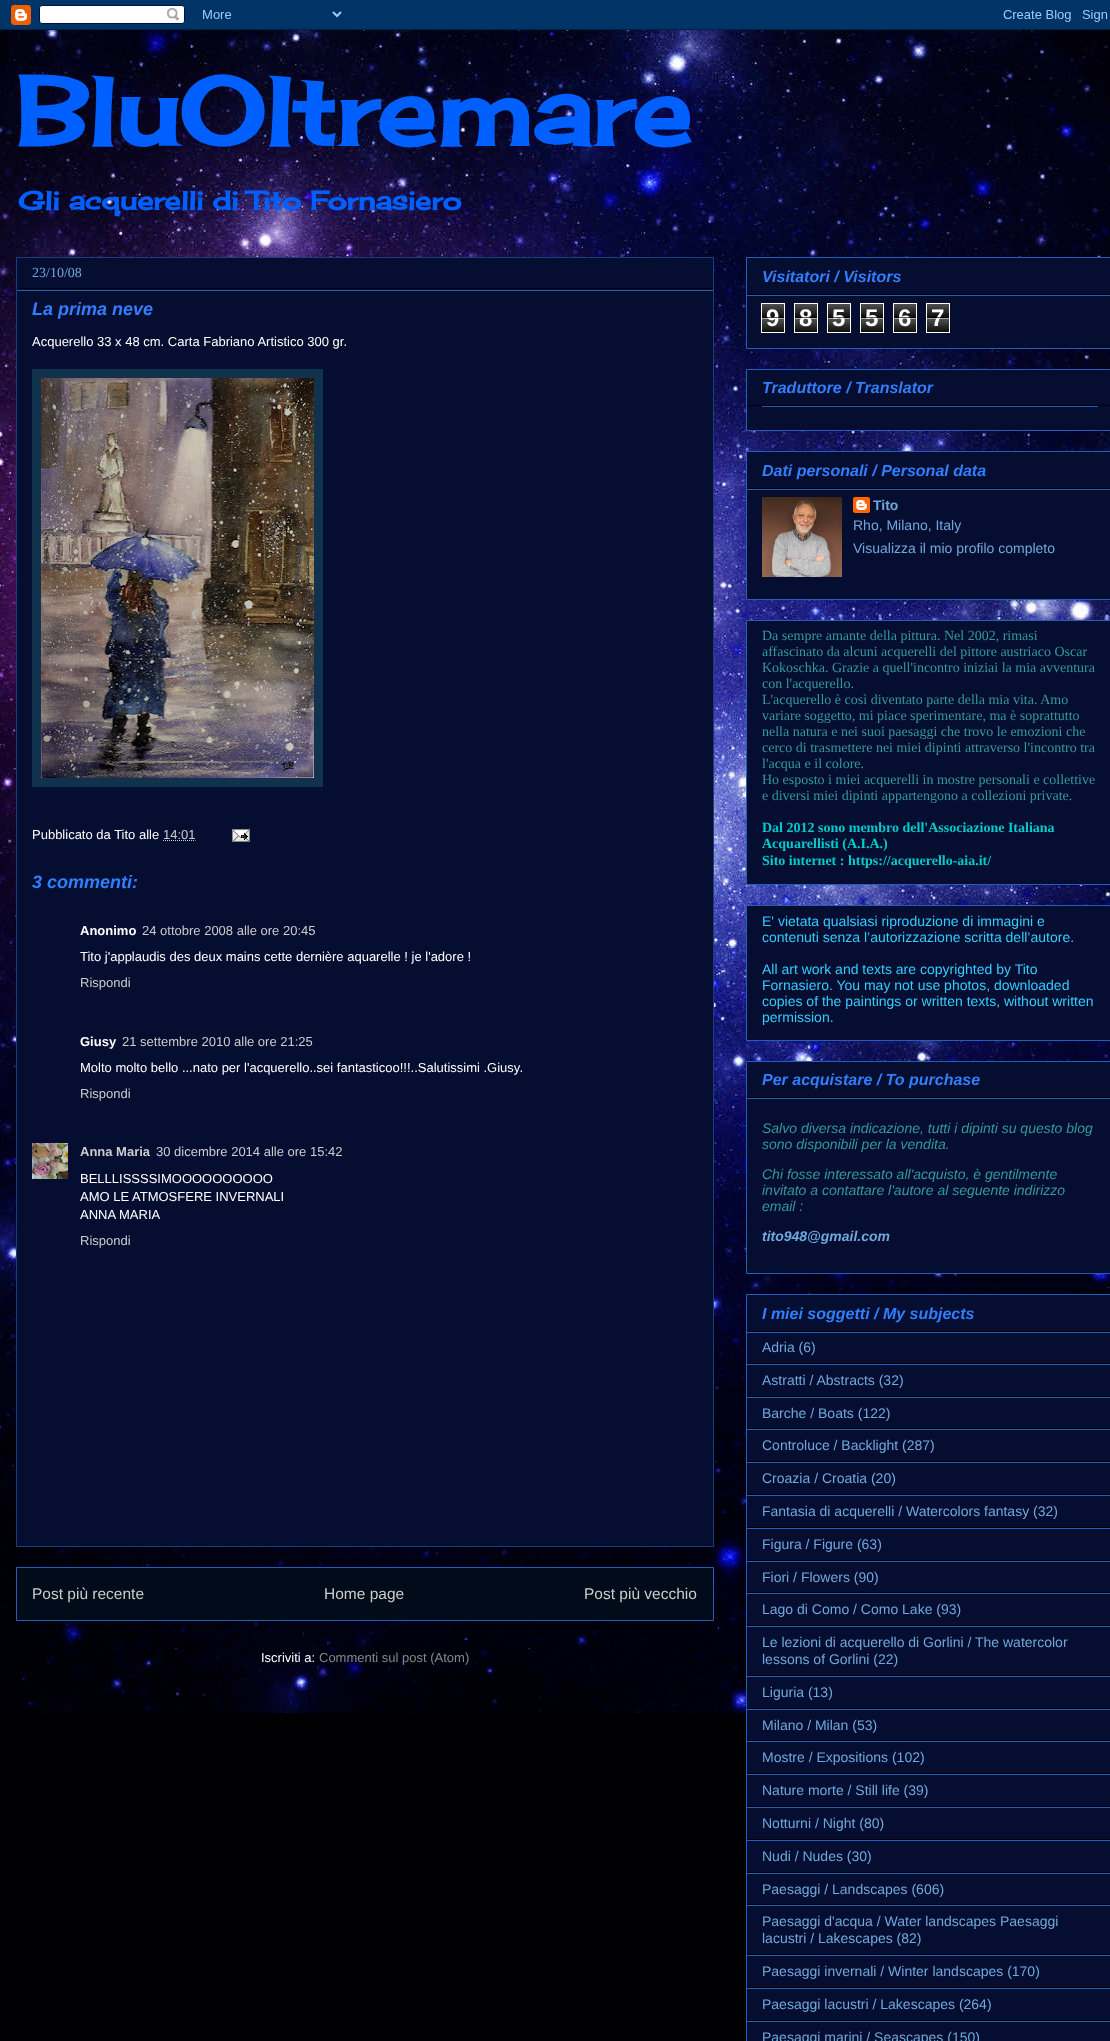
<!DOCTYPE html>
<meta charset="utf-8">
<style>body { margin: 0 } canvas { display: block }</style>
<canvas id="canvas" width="1110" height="2041"></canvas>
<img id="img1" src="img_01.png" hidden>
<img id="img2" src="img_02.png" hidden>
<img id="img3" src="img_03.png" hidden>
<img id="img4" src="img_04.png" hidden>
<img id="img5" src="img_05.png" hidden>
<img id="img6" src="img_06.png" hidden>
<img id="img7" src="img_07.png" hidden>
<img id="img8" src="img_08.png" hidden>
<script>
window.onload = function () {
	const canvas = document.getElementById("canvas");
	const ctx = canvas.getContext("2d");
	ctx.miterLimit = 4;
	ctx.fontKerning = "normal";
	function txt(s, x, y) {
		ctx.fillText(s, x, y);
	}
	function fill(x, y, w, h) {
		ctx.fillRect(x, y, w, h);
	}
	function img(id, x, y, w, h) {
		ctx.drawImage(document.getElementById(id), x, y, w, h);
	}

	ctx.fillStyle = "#000002";
	fill(0, 0, 1110, 2041);
	img("img1", 0, 30, 1110, 1683);
	img("img2", 0, 0, 1110, 30);
	ctx.fillStyle = "#050E30";
	ctx.beginPath();
	ctx.rect(16.5, 257.5, 697, 1289);
	ctx.fill();
	ctx.strokeStyle = "#183E7C";
	ctx.stroke();
	ctx.fillStyle = "#000000";
	fill(17, 288, 696, 1);
	ctx.fillStyle = "#245DBA";
	fill(17, 290, 696, 1);
	ctx.fillStyle = "#10324C";
	fill(32, 369, 291, 418);
	img("img3", 41, 378, 273, 400);
	ctx.beginPath();
	ctx.moveTo(163, 840.5);
	ctx.lineTo(195.5, 840.5);
	ctx.strokeStyle = "#CCCCCC";
	ctx.setLineDash([1, 1]);
	ctx.stroke();
	img("img4", 232, 829, 18, 13);
	img("img5", 32, 1143, 36, 36);
	ctx.fillStyle = "#020B19";
	ctx.beginPath();
	ctx.rect(16.5, 1567.5, 697, 53);
	ctx.fill();
	ctx.strokeStyle = "#245DBA";
	ctx.setLineDash([]);
	ctx.stroke();
	ctx.fillStyle = "#050E30";
	ctx.beginPath();
	ctx.rect(746.5, 257.5, 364, 91);
	ctx.fill();
	ctx.stroke();
	ctx.fillStyle = "#000000";
	fill(747, 294, 363, 1);
	ctx.fillStyle = "#245DBA";
	fill(747, 295, 363, 1);
	img("img6", 762, 304, 22, 28);
	ctx.strokeStyle = "#FFFFFF";
	ctx.strokeRect(761.5, 303.5, 23, 29);
	img("img6", 795, 304, 22, 28);
	ctx.strokeRect(794.5, 303.5, 23, 29);
	img("img6", 828, 304, 22, 28);
	ctx.strokeRect(827.5, 303.5, 23, 29);
	img("img6", 861, 304, 22, 28);
	ctx.strokeRect(860.5, 303.5, 23, 29);
	img("img6", 894, 304, 22, 28);
	ctx.strokeRect(893.5, 303.5, 23, 29);
	img("img6", 927, 304, 22, 28);
	ctx.strokeRect(926.5, 303.5, 23, 29);
	ctx.fillStyle = "#050E30";
	ctx.beginPath();
	ctx.rect(746.5, 369.5, 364, 61);
	ctx.fill();
	ctx.strokeStyle = "#245DBA";
	ctx.stroke();
	ctx.fillStyle = "#000000";
	fill(747, 405, 363, 1);
	ctx.fillStyle = "#245DBA";
	fill(762, 406, 336, 1);
	ctx.fillStyle = "#050E30";
	ctx.beginPath();
	ctx.rect(746.5, 451.5, 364, 148);
	ctx.fill();
	ctx.stroke();
	ctx.fillStyle = "#000000";
	fill(747, 488, 363, 1);
	ctx.fillStyle = "#245DBA";
	fill(747, 489, 363, 1);
	img("img7", 762, 497, 80, 80);
	img("img8", 853, 497, 17, 16);
	ctx.fillStyle = "#050E30";
	ctx.beginPath();
	ctx.rect(746.5, 620.5, 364, 264);
	ctx.fill();
	ctx.stroke();
	ctx.beginPath();
	ctx.rect(746.5, 905.5, 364, 135);
	ctx.fill();
	ctx.stroke();
	ctx.beginPath();
	ctx.rect(746.5, 1061.5, 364, 212);
	ctx.fill();
	ctx.stroke();
	ctx.fillStyle = "#000000";
	fill(747, 1097, 363, 1);
	ctx.fillStyle = "#245DBA";
	fill(747, 1098, 363, 1);
	ctx.fillStyle = "#050E30";
	ctx.beginPath();
	ctx.rect(746.5, 1294.5, 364, 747);
	ctx.fill();
	ctx.stroke();
	ctx.fillStyle = "#000000";
	fill(747, 1331, 363, 1);
	ctx.fillStyle = "#245DBA";
	fill(747, 1332, 363, 1);
	ctx.fillStyle = "#000000";
	fill(747, 1363, 363, 1);
	ctx.fillStyle = "#245DBA";
	fill(747, 1364, 363, 1);
	ctx.fillStyle = "#000000";
	fill(747, 1396, 363, 1);
	ctx.fillStyle = "#245DBA";
	fill(747, 1397, 363, 1);
	ctx.fillStyle = "#000000";
	fill(747, 1428, 363, 1);
	ctx.fillStyle = "#245DBA";
	fill(747, 1429, 363, 1);
	ctx.fillStyle = "#000000";
	fill(747, 1461, 363, 1);
	ctx.fillStyle = "#245DBA";
	fill(747, 1462, 363, 1);
	ctx.fillStyle = "#000000";
	fill(747, 1494, 363, 1);
	ctx.fillStyle = "#245DBA";
	fill(747, 1495, 363, 1);
	ctx.fillStyle = "#000000";
	fill(747, 1527, 363, 1);
	ctx.fillStyle = "#245DBA";
	fill(747, 1528, 363, 1);
	ctx.fillStyle = "#000000";
	fill(747, 1560, 363, 1);
	ctx.fillStyle = "#245DBA";
	fill(747, 1561, 363, 1);
	ctx.fillStyle = "#000000";
	fill(747, 1592, 363, 1);
	ctx.fillStyle = "#245DBA";
	fill(747, 1593, 363, 1);
	ctx.fillStyle = "#000000";
	fill(747, 1625, 363, 1);
	ctx.fillStyle = "#245DBA";
	fill(747, 1626, 363, 1);
	ctx.fillStyle = "#000000";
	fill(747, 1675, 363, 1);
	ctx.fillStyle = "#245DBA";
	fill(747, 1676, 363, 1);
	ctx.fillStyle = "#000000";
	fill(747, 1708, 363, 1);
	ctx.fillStyle = "#245DBA";
	fill(747, 1709, 363, 1);
	ctx.fillStyle = "#000000";
	fill(747, 1740, 363, 1);
	ctx.fillStyle = "#245DBA";
	fill(747, 1741, 363, 1);
	ctx.fillStyle = "#000000";
	fill(747, 1773, 363, 1);
	ctx.fillStyle = "#245DBA";
	fill(747, 1774, 363, 1);
	ctx.fillStyle = "#000000";
	fill(747, 1806, 363, 1);
	ctx.fillStyle = "#245DBA";
	fill(747, 1807, 363, 1);
	ctx.fillStyle = "#000000";
	fill(747, 1839, 363, 1);
	ctx.fillStyle = "#245DBA";
	fill(747, 1840, 363, 1);
	ctx.fillStyle = "#000000";
	fill(747, 1872, 363, 1);
	ctx.fillStyle = "#245DBA";
	fill(747, 1873, 363, 1);
	ctx.fillStyle = "#000000";
	fill(747, 1904, 363, 1);
	ctx.fillStyle = "#245DBA";
	fill(747, 1905, 363, 1);
	ctx.fillStyle = "#000000";
	fill(747, 1954, 363, 1);
	ctx.fillStyle = "#245DBA";
	fill(747, 1955, 363, 1);
	ctx.fillStyle = "#000000";
	fill(747, 1987, 363, 1);
	ctx.fillStyle = "#245DBA";
	fill(747, 1988, 363, 1);
	ctx.fillStyle = "#000000";
	fill(747, 2020, 363, 1);
	ctx.fillStyle = "#245DBA";
	fill(747, 2021, 363, 1);
	ctx.font = "bold 95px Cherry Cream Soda";
	ctx.fillStyle = "#0060FF";
	txt("BluOltremare", 16, 146);
	ctx.font = "bold 26px Cherry Cream Soda";
	txt("Gli acquerelli di Tito Fornasiero", 18, 210);
	ctx.font = "14px Liberation Serif";
	ctx.fillStyle = "#6FA8DC";
	txt("23/10/08", 32, 277);
	ctx.font = "italic bold 18px Liberation Sans";
	ctx.fillStyle = "#317FFF";
	txt("La prima neve", 32, 315);
	ctx.font = "13px Liberation Sans";
	ctx.fillStyle = "#FFFFFF";
	txt("Acquerello 33 x 48 cm. Carta Fabriano Artistico 300 gr.", 32, 346);
	txt("Pubblicato da Tito alle", 32, 839);
	ctx.fillStyle = "#CCCCCC";
	txt("14:01", 163, 839);
	ctx.font = "italic bold 18px Liberation Sans";
	ctx.fillStyle = "#317FFF";
	txt("3 commenti:", 32, 888);
	ctx.font = "bold 13px Liberation Sans";
	ctx.fillStyle = "#FFFFFF";
	txt("Anonimo", 80, 935);
	ctx.font = "13px Liberation Sans";
	ctx.fillStyle = "#CCCCCC";
	txt("24 ottobre 2008 alle ore 20:45", 142, 935);
	ctx.fillStyle = "#FFFFFF";
	txt("Tito j'applaudis des deux mains cette dernière aquarelle ! je l'adore !", 80, 961);
	ctx.fillStyle = "#CCCCCC";
	txt("Rispondi", 80, 987);
	ctx.font = "bold 13px Liberation Sans";
	ctx.fillStyle = "#FFFFFF";
	txt("Giusy", 80, 1046);
	ctx.font = "13px Liberation Sans";
	ctx.fillStyle = "#CCCCCC";
	txt("21 settembre 2010 alle ore 21:25", 122, 1046);
	ctx.fillStyle = "#FFFFFF";
	txt("Molto molto bello ...nato per l'acquerello..sei fantasticoo!!!..Salutissimi .Giusy.", 80, 1072);
	ctx.fillStyle = "#CCCCCC";
	txt("Rispondi", 80, 1098);
	ctx.font = "bold 13px Liberation Sans";
	txt("Anna Maria", 80, 1156);
	ctx.font = "13px Liberation Sans";
	txt("30 dicembre 2014 alle ore 15:42", 156, 1156);
	ctx.fillStyle = "#FFFFFF";
	txt("BELLLISSSSIMOOOOOOOOOO", 80, 1183);
	txt("AMO LE ATMOSFERE INVERNALI", 80, 1201);
	txt("ANNA MARIA", 80, 1219);
	ctx.fillStyle = "#CCCCCC";
	txt("Rispondi", 80, 1245);
	ctx.font = "15.5px Liberation Sans";
	txt("Post più recente", 32, 1599);
	txt("Home page", 324, 1599);
	txt("Post più vecchio", 584, 1599);
	ctx.font = "13px Liberation Sans";
	ctx.fillStyle = "#FFFFFF";
	txt("Iscriviti a:", 261, 1662);
	ctx.fillStyle = "#888888";
	txt("Commenti sul post (Atom)", 319, 1662);
	ctx.font = "italic bold 16px Liberation Sans";
	ctx.fillStyle = "#317FFF";
	txt("Visitatori / Visitors", 762, 282);
	ctx.font = "bold 24px Liberation Sans";
	ctx.fillStyle = "#FFFFFF";
	txt("9", 766, 326);
	ctx.fillStyle = "rgba(0, 0, 0, 0.65)";
	fill(762, 317, 22, 1);
	ctx.fillStyle = "rgba(255, 255, 255, 0.65)";
	fill(762, 318, 22, 1);
	ctx.fillStyle = "#FFFFFF";
	txt("8", 799, 326);
	ctx.fillStyle = "rgba(0, 0, 0, 0.65)";
	fill(795, 317, 22, 1);
	ctx.fillStyle = "rgba(255, 255, 255, 0.65)";
	fill(795, 318, 22, 1);
	ctx.fillStyle = "#FFFFFF";
	txt("5", 832, 326);
	ctx.fillStyle = "rgba(0, 0, 0, 0.65)";
	fill(828, 317, 22, 1);
	ctx.fillStyle = "rgba(255, 255, 255, 0.65)";
	fill(828, 318, 22, 1);
	ctx.fillStyle = "#FFFFFF";
	txt("5", 865, 326);
	ctx.fillStyle = "rgba(0, 0, 0, 0.65)";
	fill(861, 317, 22, 1);
	ctx.fillStyle = "rgba(255, 255, 255, 0.65)";
	fill(861, 318, 22, 1);
	ctx.fillStyle = "#FFFFFF";
	txt("6", 898, 326);
	ctx.fillStyle = "rgba(0, 0, 0, 0.65)";
	fill(894, 317, 22, 1);
	ctx.fillStyle = "rgba(255, 255, 255, 0.65)";
	fill(894, 318, 22, 1);
	ctx.fillStyle = "#FFFFFF";
	txt("7", 931, 326);
	ctx.fillStyle = "rgba(0, 0, 0, 0.65)";
	fill(927, 317, 22, 1);
	ctx.fillStyle = "rgba(255, 255, 255, 0.65)";
	fill(927, 318, 22, 1);
	ctx.font = "italic bold 16px Liberation Sans";
	ctx.fillStyle = "#317FFF";
	txt("Traduttore / Translator", 762, 393);
	txt("Dati personali / Personal data", 762, 476);
	ctx.font = "bold 14px Liberation Sans";
	ctx.fillStyle = "#6FA8DC";
	txt("Tito", 873, 510);
	ctx.font = "14px Liberation Sans";
	txt("Rho, Milano, Italy", 853, 530);
	txt("Visualizza il mio profilo completo", 853, 553);
	ctx.font = "14px Liberation Serif";
	ctx.fillStyle = "#339999";
	txt("Da sempre amante della pittura. Nel 2002, rimasi", 762, 640);
	txt("affascinato da alcuni acquerelli del pittore austriaco Oscar", 762, 656);
	txt("Kokoschka. Grazie a quell'incontro iniziai la mia avventura", 762, 672);
	txt("con l'acquerello.", 762, 688);
	txt("L'acquerello è così diventato parte della mia vita. Amo", 762, 704);
	txt("variare soggetto, mi piace sperimentare, ma è soprattutto", 762, 720);
	txt("nella natura e nei suoi paesaggi che trovo le emozioni che", 762, 736);
	txt("cerco di trasmettere nei miei dipinti attraverso l'incontro tra", 762, 752);
	txt("l'acqua e il colore.", 762, 768);
	txt("Ho esposto i miei acquerelli in mostre personali e collettive", 762, 784);
	txt("e diversi miei dipinti appartengono a collezioni private.", 762, 800);
	ctx.font = "bold 14px Liberation Serif";
	ctx.fillStyle = "#00CCCC";
	txt("Dal 2012 sono membro dell'Associazione Italiana", 762, 832);
	txt("Acquarellisti (A.I.A.)", 762, 848);
	txt("Sito internet : https://acquerello-aia.it/", 762, 865);
	ctx.font = "14px Liberation Sans";
	ctx.fillStyle = "#33CCFF";
	txt("E' vietata qualsiasi riproduzione di immagini e", 762, 926);
	txt("contenuti senza l’autorizzazione scritta dell’autore.", 762, 942);
	txt("All art work and texts are copyrighted by Tito", 762, 974);
	txt("Fornasiero. You may not use photos, downloaded", 762, 990);
	txt("copies of the paintings or written texts, without written", 762, 1006);
	txt("permission.", 762, 1022);
	ctx.font = "italic bold 16px Liberation Sans";
	ctx.fillStyle = "#317FFF";
	txt("Per acquistare / To purchase", 762, 1085);
	ctx.font = "italic 14px Liberation Sans";
	ctx.fillStyle = "#339999";
	txt("Salvo diversa indicazione, tutti i dipinti su questo blog", 762, 1133);
	txt("sono disponibili per la vendita.", 762, 1149);
	txt("Chi fosse interessato all'acquisto, è gentilmente", 762, 1179);
	txt("invitato a contattare l'autore al seguente indirizzo", 762, 1195);
	txt("email :", 762, 1211);
	ctx.font = "italic bold 14px Liberation Sans";
	ctx.fillStyle = "#6FA8DC";
	txt("tito948@gmail.com", 762, 1241);
	ctx.font = "italic bold 16px Liberation Sans";
	ctx.fillStyle = "#317FFF";
	txt("I miei soggetti / My subjects", 762, 1319);
	ctx.font = "14px Liberation Sans";
	ctx.fillStyle = "#6FA8DC";
	txt("Adria (6)", 762, 1352);
	txt("Astratti / Abstracts (32)", 762, 1385);
	txt("Barche / Boats (122)", 762, 1418);
	txt("Controluce / Backlight (287)", 762, 1450);
	txt("Croazia / Croatia (20)", 762, 1483);
	txt("Fantasia di acquerelli / Watercolors fantasy (32)", 762, 1516);
	txt("Figura / Figure (63)", 762, 1549);
	txt("Fiori / Flowers (90)", 762, 1582);
	txt("Lago di Como / Como Lake (93)", 762, 1614);
	txt("Le lezioni di acquerello di Gorlini / The watercolor", 762, 1647);
	txt("lessons of Gorlini (22)", 762, 1664);
	txt("Liguria (13)", 762, 1697);
	txt("Milano / Milan (53)", 762, 1730);
	txt("Mostre / Expositions (102)", 762, 1762);
	txt("Nature morte / Still life (39)", 762, 1795);
	txt("Notturni / Night (80)", 762, 1828);
	txt("Nudi / Nudes (30)", 762, 1861);
	txt("Paesaggi / Landscapes (606)", 762, 1894);
	txt("Paesaggi d'acqua / Water landscapes Paesaggi", 762, 1926);
	txt("lacustri / Lakescapes (82)", 762, 1943);
	txt("Paesaggi invernali / Winter landscapes (170)", 762, 1976);
	txt("Paesaggi lacustri / Lakescapes (264)", 762, 2009);
	txt("Paesaggi marini / Seascapes (150)", 762, 2042);
};
</script>
